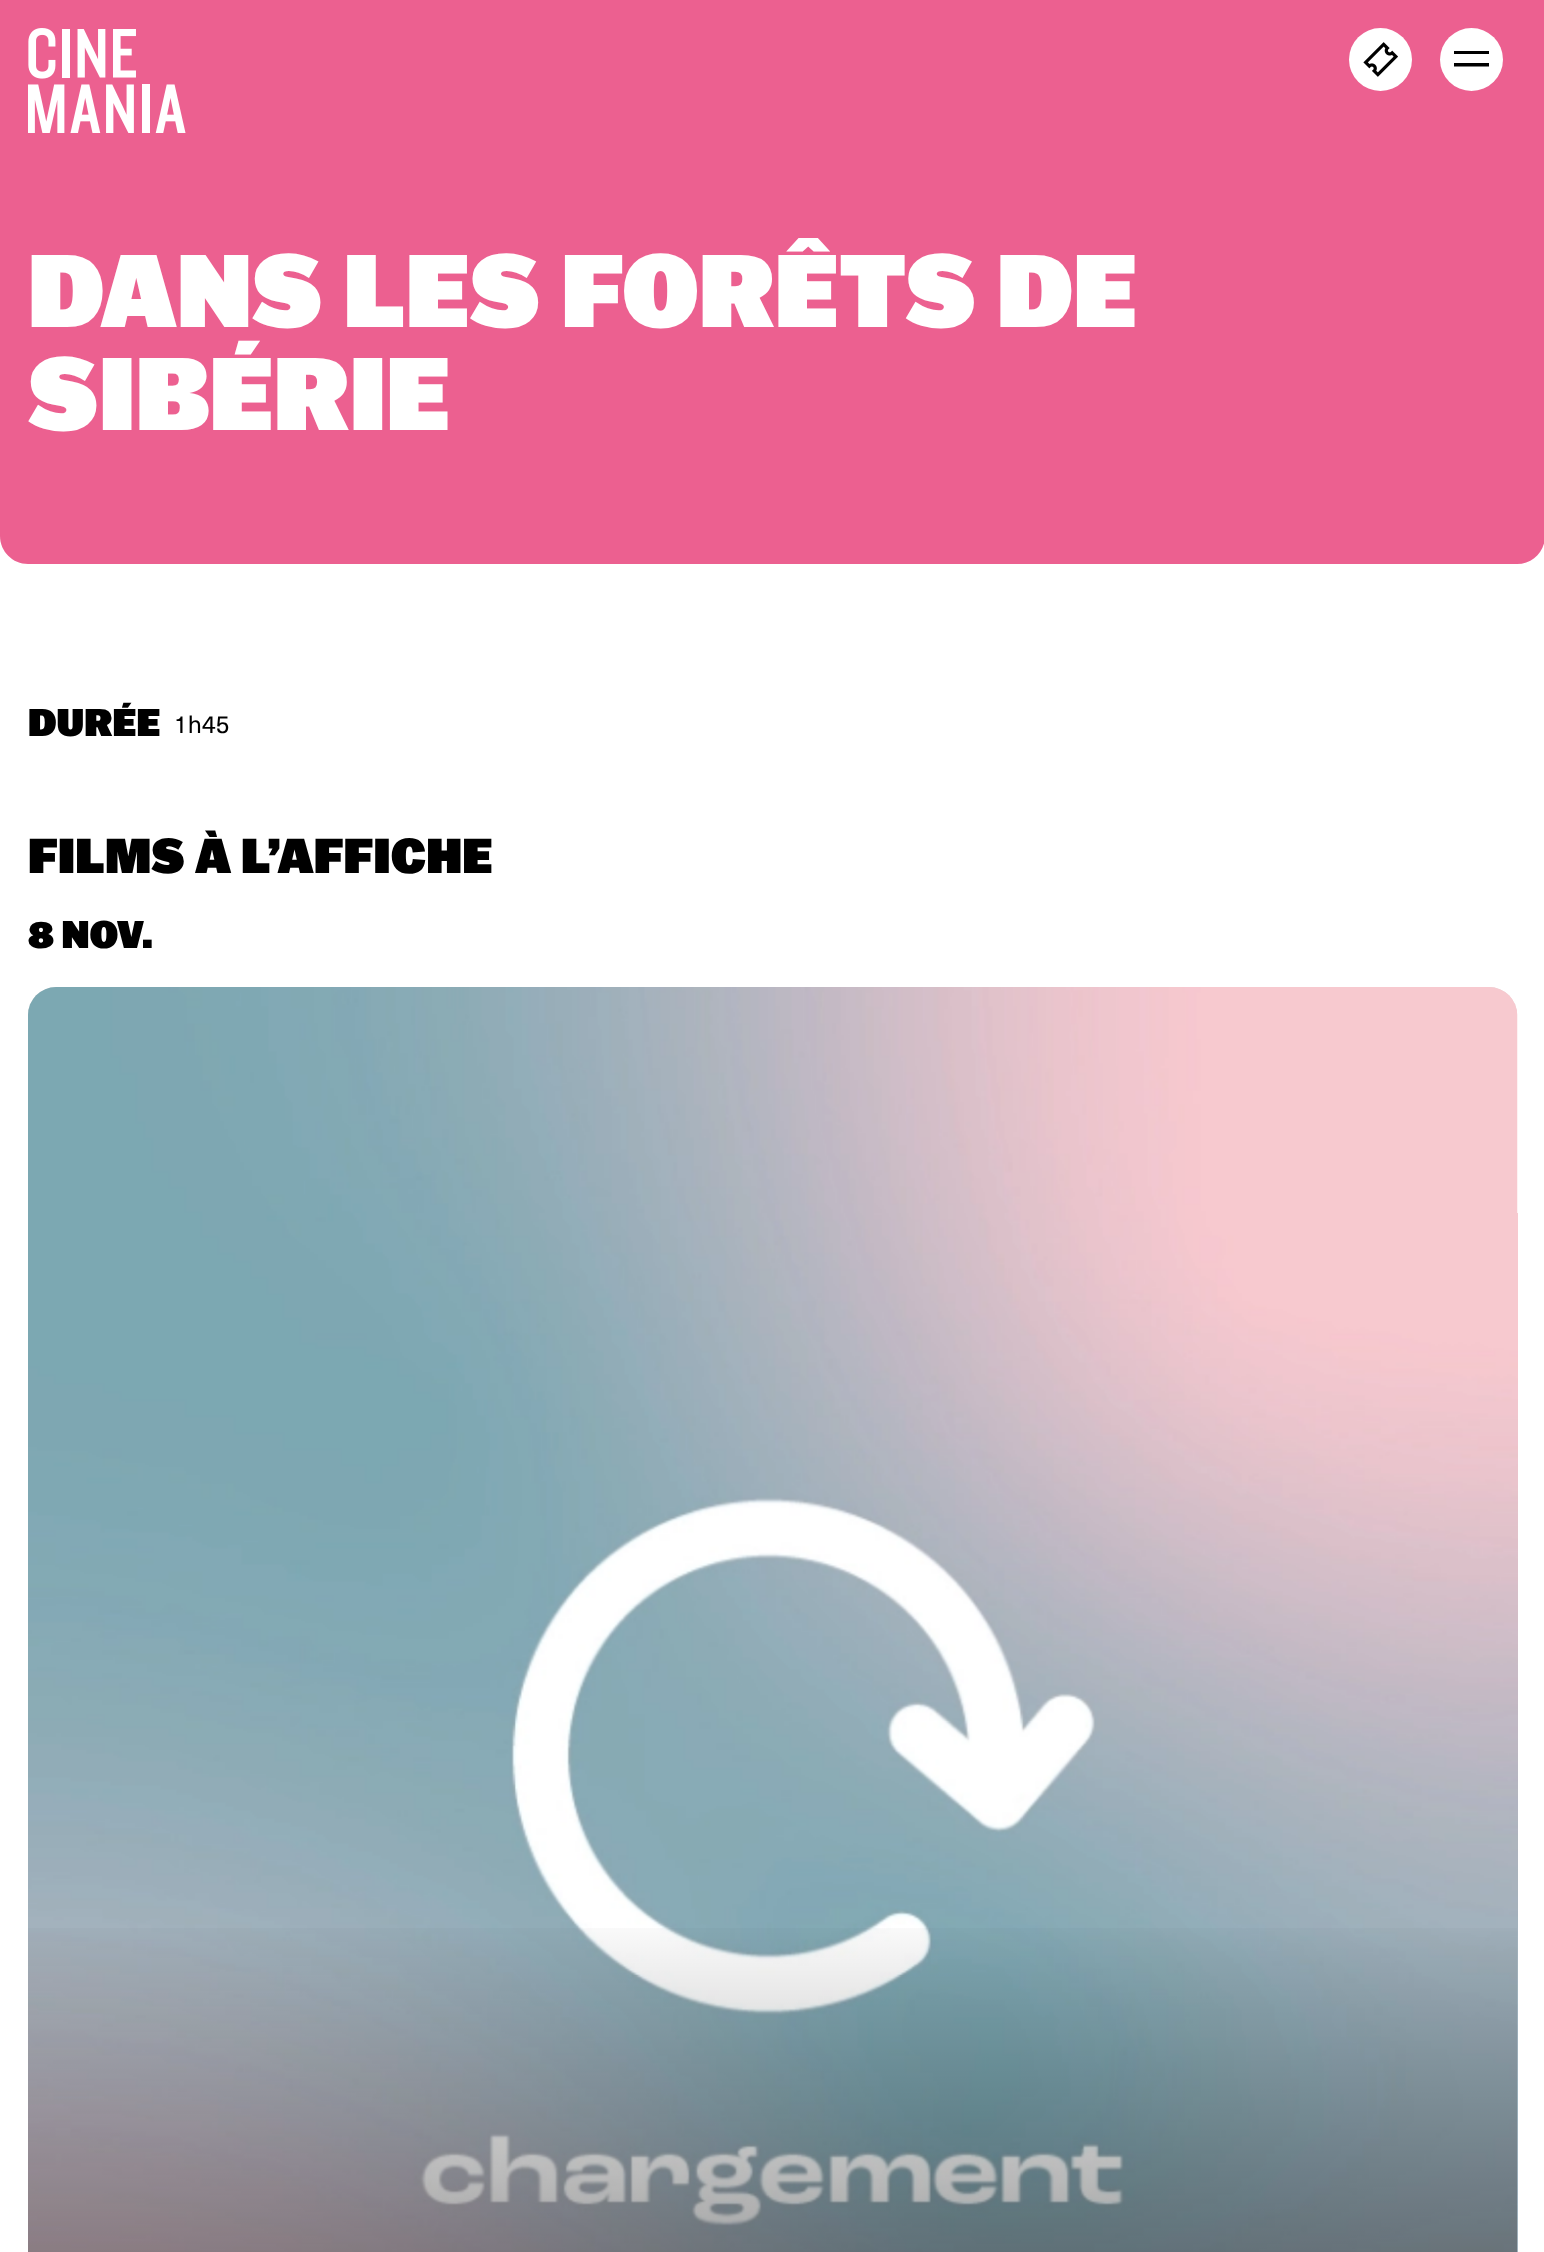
<!DOCTYPE html>
<meta charset="utf-8">
<style>body { margin: 0 } canvas { display: block }</style>
<canvas id="canvas" width="1544" height="2252"></canvas>
<img id="img1" src="img_01.png" hidden>
<img id="img2" src="img_02.png" hidden>
<img id="img3" src="img_03.png" hidden>
<script>
window.onload = function () {
	const canvas = document.getElementById("canvas");
	const ctx = canvas.getContext("2d");
	ctx.miterLimit = 4;
	ctx.fontKerning = "normal";
	function txt(s, x, y) {
		ctx.fillText(s, x, y);
	}
	function fill(x, y, w, h) {
		ctx.fillRect(x, y, w, h);
	}
	function img(id, x, y, w, h) {
		ctx.drawImage(document.getElementById(id), x, y, w, h);
	}
	let gradient;

	ctx.fillStyle = "#FFFFFF";
	fill(0, 0, 1544, 2252);
	ctx.fillStyle = "#EC6090";
	ctx.beginPath();
	ctx.moveTo(0, 0);
	ctx.lineTo(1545, 0);
	ctx.lineTo(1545, 536);
	ctx.bezierCurveTo(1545, 551.5, 1532.5, 564, 1517, 564);
	ctx.lineTo(28, 564);
	ctx.bezierCurveTo(12.5, 564, 0, 551.5, 0, 536);
	ctx.closePath();
	ctx.fill();
	img("img1", 28, 28, 158, 105);
	gradient = ctx.createRadialGradient(1538, 17.13, 0, 1538, 17.13, 189);
	gradient.addColorStop(0.34, "#B1B1B1");
	gradient.addColorStop(0.54, "#EDEDED");
	gradient.addColorStop(0.67, "#FFFFFF");
	ctx.fillStyle = gradient;
	ctx.beginPath();
	ctx.arc(1380.5, 59.5, 31.5, 0, Math.PI * 2);
	ctx.save();
	ctx.clip();
	ctx.scale(1, 662 / 189);
	ctx.fillRect(0, 0, 1544, 643);
	ctx.restore();
	img("img2", 1363, 42, 35, 35);
	gradient = ctx.createRadialGradient(1629, 17.13, 0, 1629, 17.13, 189);
	gradient.addColorStop(0.34, "#B1B1B1");
	gradient.addColorStop(0.54, "#EDEDED");
	gradient.addColorStop(0.67, "#FFFFFF");
	ctx.fillStyle = gradient;
	ctx.beginPath();
	ctx.arc(1471.5, 59.5, 31.5, 0, Math.PI * 2);
	ctx.save();
	ctx.clip();
	ctx.scale(1, 662 / 189);
	ctx.fillRect(0, 0, 1544, 643);
	ctx.restore();
	ctx.fillStyle = "#000000";
	ctx.beginPath();
	ctx.moveTo(1454, 54);
	ctx.lineTo(1489, 54);
	ctx.lineTo(1489, 51);
	ctx.lineTo(1454, 51);
	ctx.closePath();
	ctx.moveTo(1454, 66.5);
	ctx.lineTo(1489, 66.5);
	ctx.lineTo(1489, 63);
	ctx.lineTo(1454, 63);
	ctx.closePath();
	ctx.fill("evenodd");
	ctx.fillStyle = "#DDDDDD";
	ctx.beginPath();
	ctx.roundRect(28, 987, 1489, 1265, [28, 28, 0, 0]);
	ctx.fill();
	img("img3", 28, 987, 1490, 1265);
	gradient = ctx.createLinearGradient(773, 987, 773, 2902);
	gradient.addColorStop(0.48, "rgba(0, 0, 0, 0)");
	gradient.addColorStop(1, "#000000");
	ctx.fillStyle = gradient;
	fill(28, 1928, 1489, 324);
	ctx.font = "800 103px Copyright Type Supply";
	ctx.fillStyle = "#FFFFFF";
	txt("DANS LES FORÊTS DE", 28, 327);
	txt("SIBÉRIE", 28, 430);
	ctx.font = "800 38.5px Copyright Type Supply";
	ctx.fillStyle = "#000000";
	txt("DURÉE", 28, 736);
	ctx.font = "24.5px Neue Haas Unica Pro";
	txt("1h45", 174, 733);
	ctx.font = "800 49px Copyright Type Supply";
	txt("FILMS À L’AFFICHE", 28, 873);
	ctx.font = "800 38.5px Copyright Type Supply";
	txt("8 NOV.", 28, 948);
};
</script>
